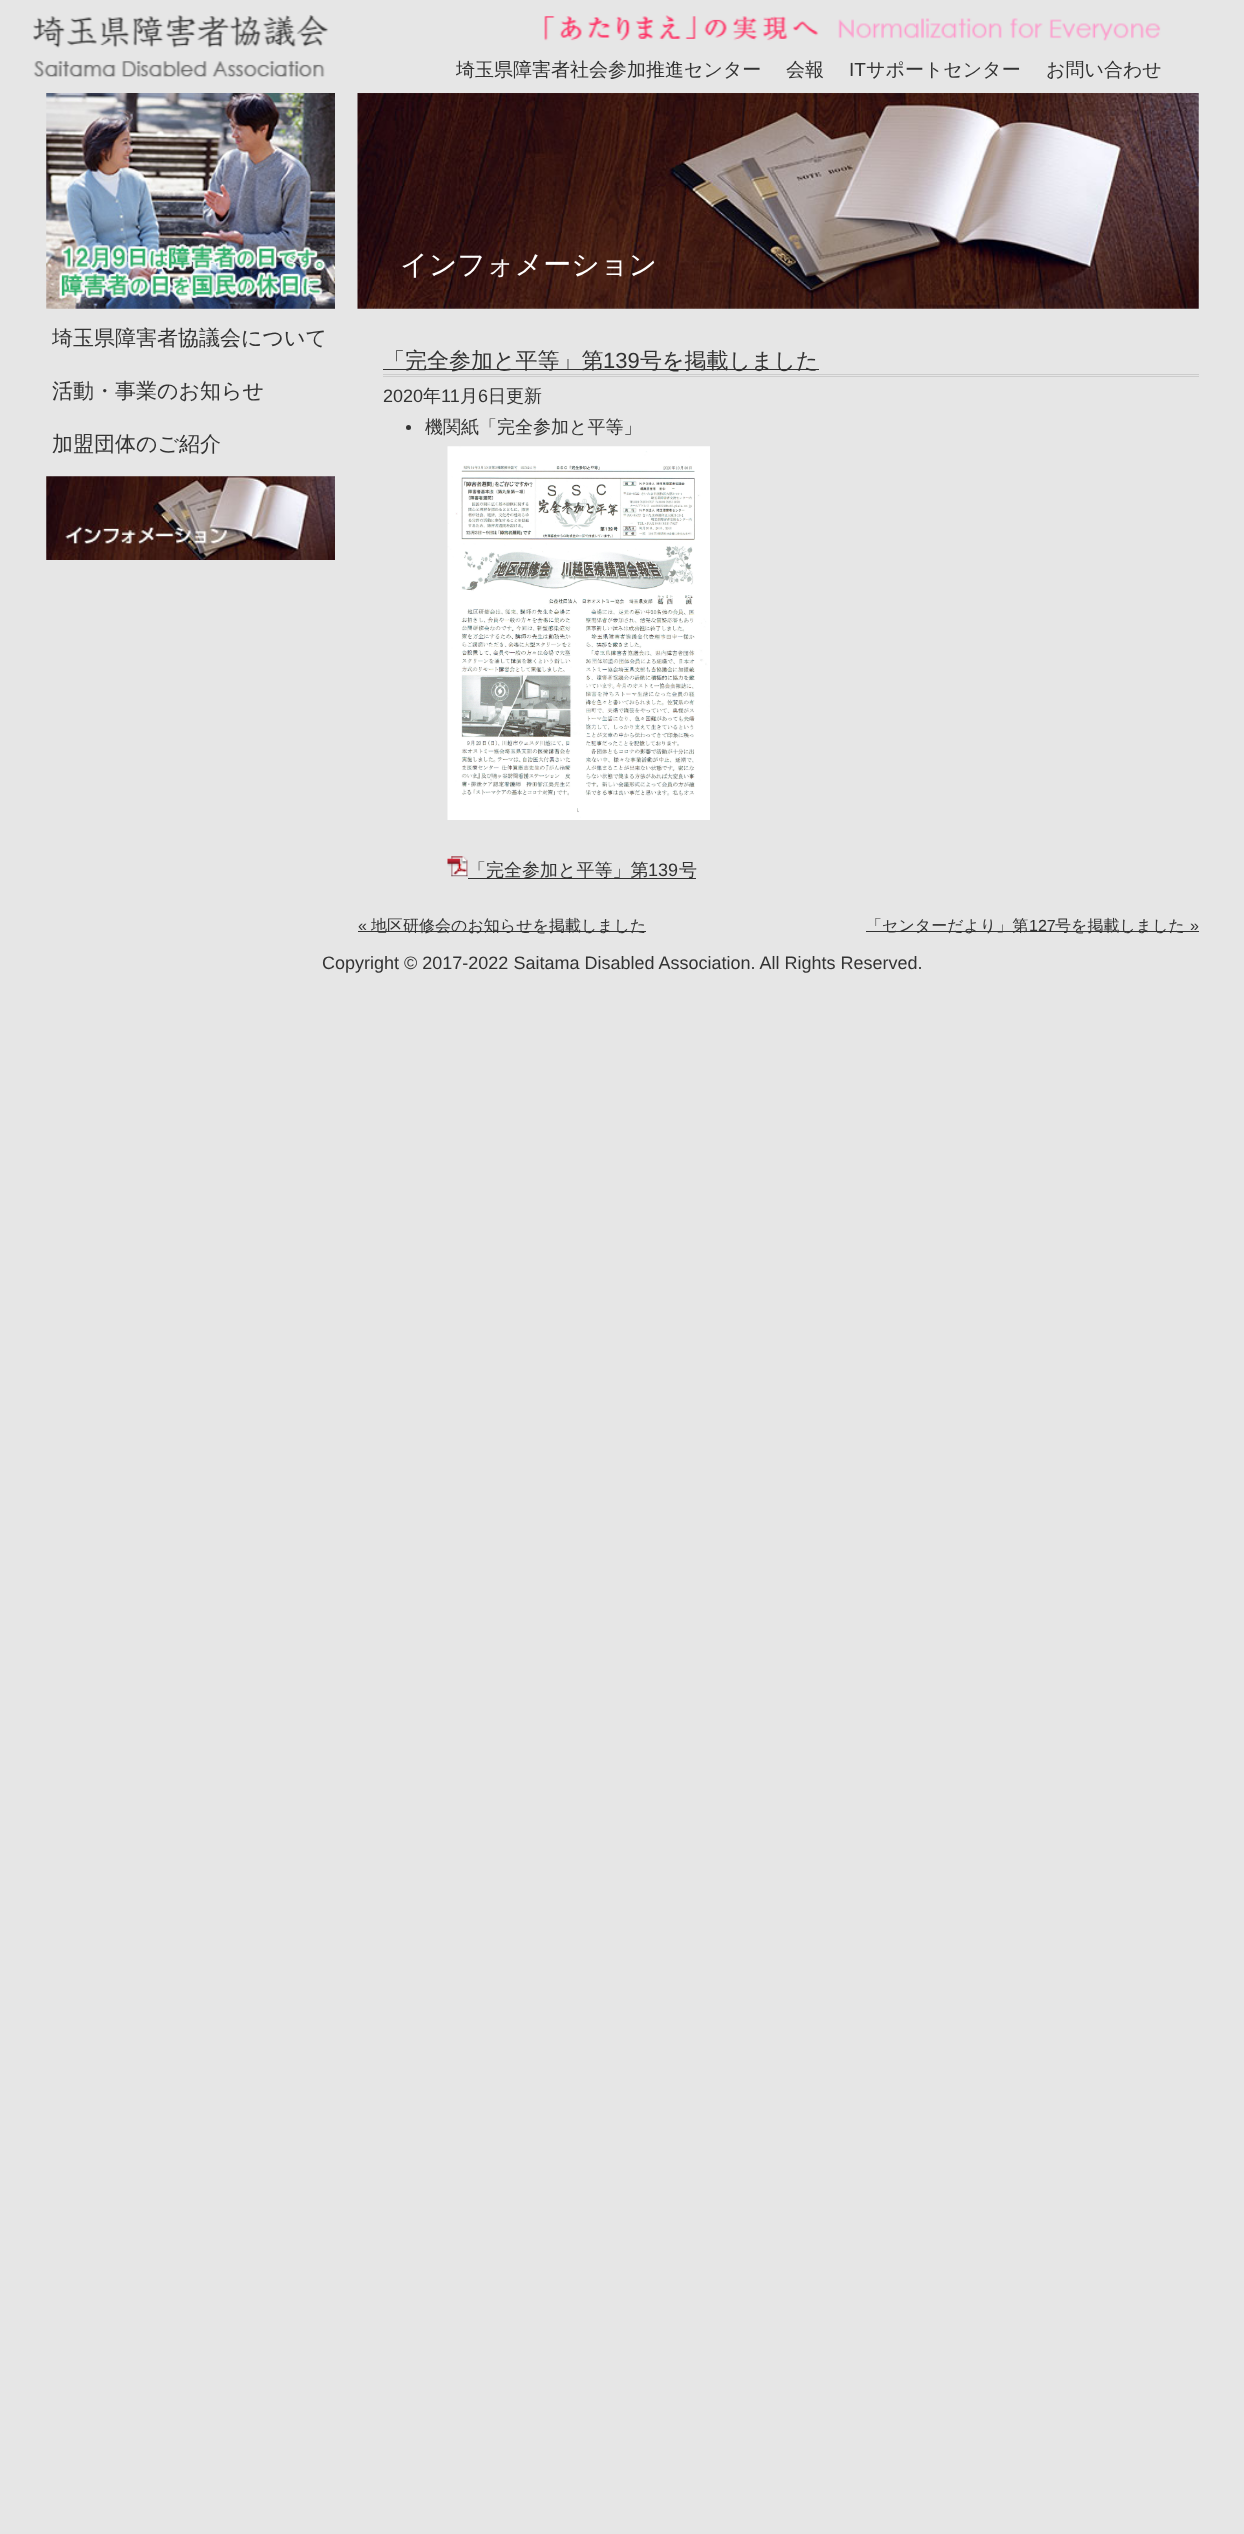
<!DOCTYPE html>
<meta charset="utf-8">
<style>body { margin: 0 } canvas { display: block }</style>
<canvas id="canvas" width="1244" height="2534"></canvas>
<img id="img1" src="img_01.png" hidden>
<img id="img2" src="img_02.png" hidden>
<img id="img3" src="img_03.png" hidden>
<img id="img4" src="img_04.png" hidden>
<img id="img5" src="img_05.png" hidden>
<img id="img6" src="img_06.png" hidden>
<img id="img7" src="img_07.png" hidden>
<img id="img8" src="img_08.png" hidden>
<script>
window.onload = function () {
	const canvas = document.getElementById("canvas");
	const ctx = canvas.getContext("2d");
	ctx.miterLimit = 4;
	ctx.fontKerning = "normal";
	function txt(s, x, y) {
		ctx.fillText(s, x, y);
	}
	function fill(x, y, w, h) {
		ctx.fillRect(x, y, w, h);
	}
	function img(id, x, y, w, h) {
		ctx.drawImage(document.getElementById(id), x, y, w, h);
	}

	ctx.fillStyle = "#E6E6E6";
	fill(0, 0, 1244, 2534);
	img("img1", 33, 15, 296, 62);
	img("img2", 544, 15, 275, 26);
	img("img3", 838, 18, 323, 23);
	img("img4", 46, 93, 289, 216);
	img("img5", 46, 476, 289, 84);
	img("img6", 357, 93, 842, 216);
	ctx.fillStyle = "#CCCCCC";
	fill(383, 374, 816, 1);
	fill(383, 376, 816, 1);
	ctx.fillStyle = "#333333";
	fill(383, 369, 436, 1);
	ctx.beginPath();
	ctx.arc(408.5, 427.5, 2.5, 0, Math.PI * 2);
	ctx.fill();
	img("img7", 447, 446, 263, 374);
	img("img8", 447, 856, 21, 21);
	fill(468, 878, 228, 1);
	fill(358, 931, 288, 1);
	fill(866, 931, 333, 1);
	ctx.font = "500 19px WenQuanYi Zen Hei";
	txt("埼玉県障害者社会参加推進センター", 456, 76);
	txt("会報", 786, 76);
	ctx.font = "19px Liberation Sans";
	txt("IT", 849, 76);
	ctx.font = "500 19px WenQuanYi Zen Hei";
	txt("サポートセンター", 866, 76);
	txt("お問い合わせ", 1046, 76);
	ctx.font = "500 21px WenQuanYi Zen Hei";
	txt("埼玉県障害者協議会について", 52, 345);
	txt("活動・事業のお知らせ", 52, 398);
	txt("加盟団体のご紹介", 52, 451);
	ctx.font = "500 28px WenQuanYi Zen Hei";
	ctx.fillStyle = "#FFFFFF";
	txt("インフォメーション", 400, 274);
	ctx.font = "500 22px WenQuanYi Zen Hei";
	ctx.fillStyle = "#333333";
	txt("「完全参加と平等」第", 383, 368);
	ctx.font = "22px Liberation Sans";
	txt("139", 603, 368);
	ctx.font = "500 22px WenQuanYi Zen Hei";
	txt("号を掲載しました", 640, 368);
	ctx.font = "18px Liberation Sans";
	txt("2020", 383, 402);
	ctx.font = "500 18px WenQuanYi Zen Hei";
	txt("年", 423, 402);
	ctx.font = "18px Liberation Sans";
	txt("11", 441, 402);
	ctx.font = "500 18px WenQuanYi Zen Hei";
	txt("月", 460, 402);
	ctx.font = "18px Liberation Sans";
	txt("6", 478, 402);
	ctx.font = "500 18px WenQuanYi Zen Hei";
	txt("日更新", 488, 402);
	txt("機関紙「完全参加と平等」", 425, 433);
	txt("「完全参加と平等」第", 468, 876);
	ctx.font = "18px Liberation Sans";
	txt("139", 648, 876);
	ctx.font = "500 18px WenQuanYi Zen Hei";
	txt("号", 679, 876);
	ctx.font = "16px Liberation Sans";
	txt("«", 358, 931);
	ctx.font = "500 16px WenQuanYi Zen Hei";
	txt("地区研修会のお知らせを掲載しました", 371, 931);
	txt("「センターだより」第", 866, 931);
	ctx.font = "16px Liberation Sans";
	txt("127", 1029, 931);
	ctx.font = "500 16px WenQuanYi Zen Hei";
	txt("号を掲載しました", 1055, 931);
	ctx.font = "16px Liberation Sans";
	txt("»", 1190, 931);
	ctx.font = "18px Liberation Sans";
	txt("Copyright © 2017-2022 Saitama Disabled Association. All Rights Reserved.", 322, 969);
};
</script>
